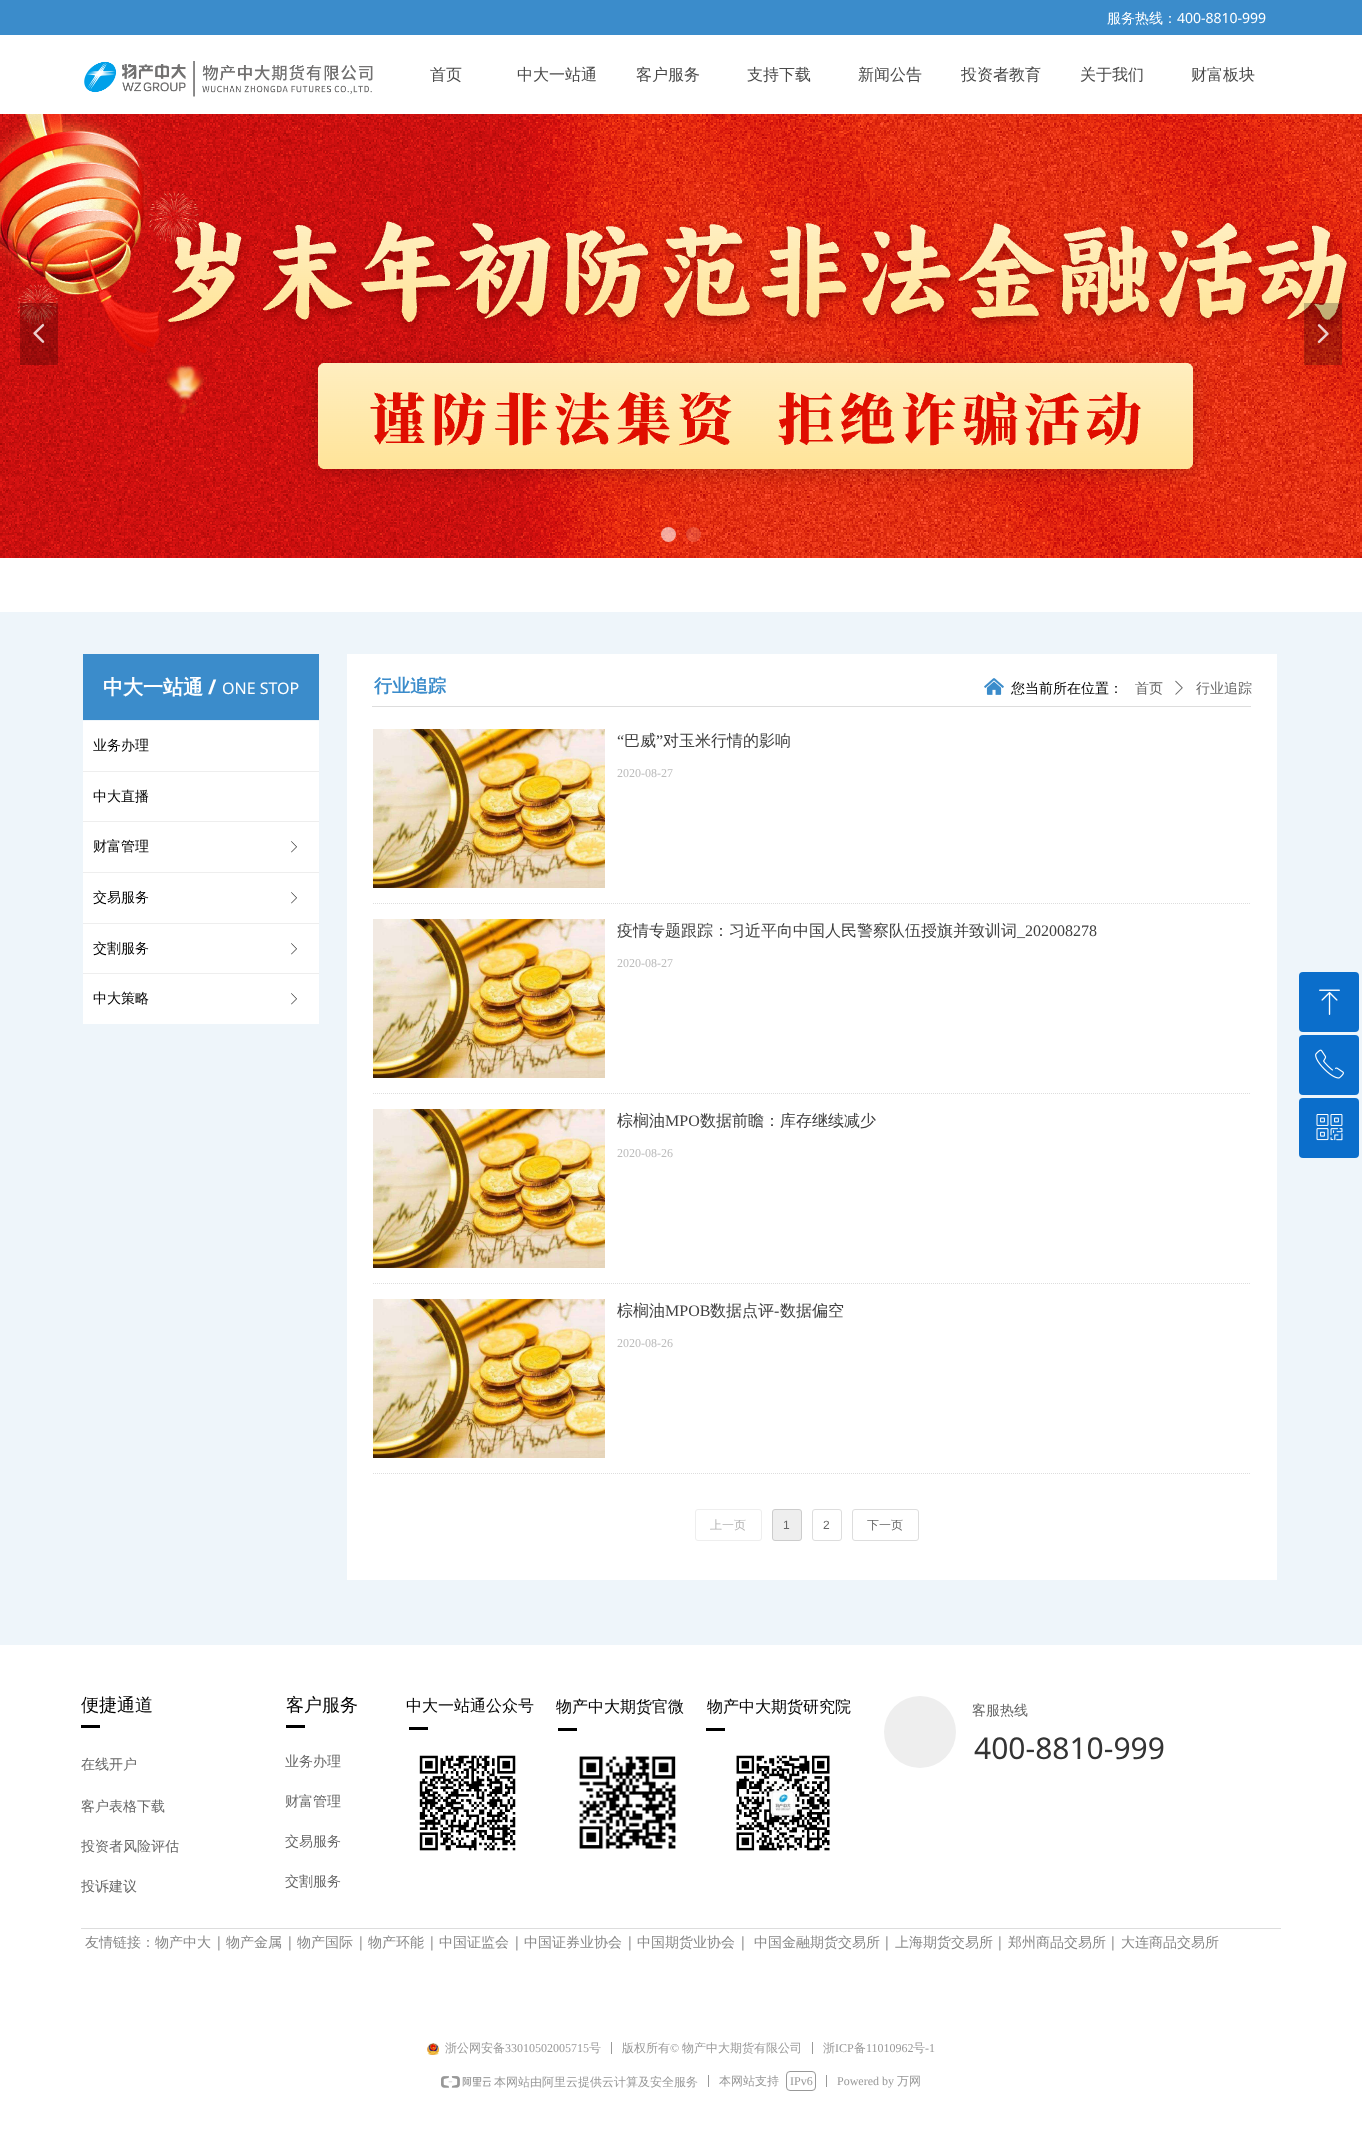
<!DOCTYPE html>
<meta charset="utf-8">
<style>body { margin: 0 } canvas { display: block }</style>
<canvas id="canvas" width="1362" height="2132"></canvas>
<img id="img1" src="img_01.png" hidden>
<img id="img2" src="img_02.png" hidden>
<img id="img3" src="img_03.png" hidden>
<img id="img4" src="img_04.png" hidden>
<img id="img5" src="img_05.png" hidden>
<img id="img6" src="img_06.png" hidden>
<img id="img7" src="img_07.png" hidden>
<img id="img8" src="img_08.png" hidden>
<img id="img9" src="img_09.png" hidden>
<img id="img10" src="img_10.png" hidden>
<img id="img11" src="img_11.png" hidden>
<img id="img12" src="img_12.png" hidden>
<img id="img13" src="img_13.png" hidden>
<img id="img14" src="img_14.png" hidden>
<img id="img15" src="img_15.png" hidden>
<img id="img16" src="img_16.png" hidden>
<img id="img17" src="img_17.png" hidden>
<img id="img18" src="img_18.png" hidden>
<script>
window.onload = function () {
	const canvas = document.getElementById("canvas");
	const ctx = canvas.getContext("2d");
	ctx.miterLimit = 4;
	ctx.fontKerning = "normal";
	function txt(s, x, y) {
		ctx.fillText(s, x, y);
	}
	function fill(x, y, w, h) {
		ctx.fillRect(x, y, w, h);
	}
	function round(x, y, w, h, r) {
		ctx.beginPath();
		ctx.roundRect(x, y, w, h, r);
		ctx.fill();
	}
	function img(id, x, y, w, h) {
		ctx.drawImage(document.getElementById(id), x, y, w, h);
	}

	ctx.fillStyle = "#FFFFFF";
	fill(0, 0, 1362, 2132);
	ctx.fillStyle = "#3B8CCB";
	fill(0, 0, 1362, 35);
	img("img1", 84, 61, 289, 36);
	img("img2", 0, 114, 1362, 444);
	ctx.fillStyle = "rgba(0, 0, 0, 0.24)";
	fill(20, 303, 38, 62);
	img("img3", 33, 324, 12, 19);
	fill(1304, 303, 38, 62);
	img("img4", 1317, 324, 12, 19);
	ctx.fillStyle = "rgba(255, 255, 255, 0.6)";
	ctx.beginPath();
	ctx.arc(668.5, 534.5, 7.5, 0, Math.PI * 2);
	ctx.fill();
	ctx.fillStyle = "rgba(255, 255, 255, 0.15)";
	ctx.beginPath();
	ctx.arc(693.5, 534.5, 7.5, 0, Math.PI * 2);
	ctx.fill();
	ctx.fillStyle = "#EEF5FA";
	fill(0, 612, 1362, 1033);
	ctx.fillStyle = "#3B8CCB";
	fill(83, 654, 236, 66);
	ctx.fillStyle = "#FFFFFF";
	fill(347, 654, 930, 926);
	img("img5", 984, 678, 20, 17);
	img("img6", 1175, 680, 8, 15);
	ctx.fillStyle = "#DDDDDD";
	fill(372, 706, 879, 1);
	ctx.beginPath();
	ctx.moveTo(373, 903.5);
	ctx.lineTo(1250, 903.5);
	ctx.strokeStyle = "#DDDDDD";
	ctx.setLineDash([1, 1]);
	ctx.stroke();
	img("img7", 373, 729, 232, 159);
	ctx.beginPath();
	ctx.moveTo(373, 1093.5);
	ctx.lineTo(1250, 1093.5);
	ctx.stroke();
	img("img8", 373, 919, 232, 159);
	ctx.beginPath();
	ctx.moveTo(373, 1283.5);
	ctx.lineTo(1250, 1283.5);
	ctx.stroke();
	img("img9", 373, 1109, 232, 159);
	ctx.beginPath();
	ctx.moveTo(373, 1473.5);
	ctx.lineTo(1250, 1473.5);
	ctx.stroke();
	img("img7", 373, 1299, 232, 159);
	ctx.beginPath();
	ctx.roundRect(695.5, 1509.5, 66, 31, 2.5);
	ctx.strokeStyle = "#EEEEEE";
	ctx.setLineDash([]);
	ctx.stroke();
	ctx.fillStyle = "#EEEEEE";
	ctx.beginPath();
	ctx.roundRect(772.5, 1509.5, 29, 31, 2.5);
	ctx.fill();
	ctx.strokeStyle = "#CCCCCC";
	ctx.stroke();
	ctx.beginPath();
	ctx.roundRect(812.5, 1509.5, 29, 31, 2.5);
	ctx.strokeStyle = "#DDDDDD";
	ctx.stroke();
	ctx.beginPath();
	ctx.roundRect(852.5, 1509.5, 66, 31, 2.5);
	ctx.stroke();
	ctx.fillStyle = "#FFFFFF";
	fill(83, 721, 236, 50);
	fill(83, 772, 236, 49);
	ctx.fillStyle = "#EEEEEE";
	fill(83, 771, 236, 1);
	ctx.fillStyle = "#FFFFFF";
	fill(83, 822, 236, 50);
	ctx.fillStyle = "#EEEEEE";
	fill(83, 821, 236, 1);
	img("img10", 291, 841, 6, 12);
	ctx.fillStyle = "#FFFFFF";
	fill(83, 873, 236, 50);
	ctx.fillStyle = "#EEEEEE";
	fill(83, 872, 236, 1);
	img("img10", 291, 892, 6, 12);
	ctx.fillStyle = "#FFFFFF";
	fill(83, 924, 236, 49);
	ctx.fillStyle = "#EEEEEE";
	fill(83, 923, 236, 1);
	img("img10", 291, 943, 6, 12);
	ctx.fillStyle = "#FFFFFF";
	fill(83, 974, 236, 50);
	ctx.fillStyle = "#EEEEEE";
	fill(83, 973, 236, 1);
	img("img10", 291, 993, 6, 12);
	ctx.beginPath();
	ctx.arc(920, 1732, 36, 0, Math.PI * 2);
	ctx.fill();
	ctx.fillStyle = "#000000";
	fill(81, 1725, 19, 3);
	fill(286, 1725, 19, 3);
	fill(409, 1727, 19, 3);
	fill(558, 1728, 19, 3);
	fill(706, 1728, 19, 3);
	img("img11", 419, 1755, 97, 96);
	img("img12", 579, 1756, 97, 93);
	img("img13", 736, 1755, 94, 96);
	ctx.fillStyle = "#DDDDDD";
	fill(81, 1928, 1200, 1);
	ctx.fillStyle = "#0B6ECB";
	round(1299, 972, 60, 60, 4);
	img("img14", 1319, 989, 21, 26);
	round(1299, 1035, 60, 60, 4);
	img("img15", 1315, 1049, 29, 30);
	round(1299, 1098, 60, 60, 4);
	img("img16", 1316, 1114, 27, 27);
	img("img17", 427, 2043, 12, 12);
	ctx.fillStyle = "#989898";
	fill(611, 2042, 1, 12);
	fill(812, 2042, 1, 12);
	img("img18", 441, 2076, 50, 12);
	fill(708, 2075, 1, 12);
	ctx.beginPath();
	ctx.roundRect(786.5, 2071.5, 29, 19, 3.5);
	ctx.strokeStyle = "#989898";
	ctx.stroke();
	fill(826, 2075, 1, 12);
	ctx.font = "500 14px WenQuanYi Zen Hei";
	ctx.fillStyle = "#FFFFFF";
	txt("服务热线：", 1107, 23);
	ctx.font = "14px Noto Sans";
	txt("400-8810-999", 1177, 23);
	ctx.font = "500 16px WenQuanYi Zen Hei";
	ctx.fillStyle = "#4A4A4A";
	txt("首页", 430, 80);
	txt("中大一站通", 517, 80);
	txt("客户服务", 636, 80);
	txt("支持下载", 747, 80);
	txt("新闻公告", 858, 80);
	txt("投资者教育", 961, 80);
	txt("关于我们", 1080, 80);
	txt("财富板块", 1191, 80);
	ctx.font = "bold 20px WenQuanYi Zen Hei";
	ctx.fillStyle = "#FFFFFF";
	txt("中大一站通", 103, 694);
	ctx.font = "bold 20px Noto Sans";
	txt("/", 208, 694);
	ctx.font = "16px Noto Sans";
	txt("ONE STOP", 222, 694);
	ctx.font = "bold 18px WenQuanYi Zen Hei";
	ctx.fillStyle = "#3B8CCB";
	txt("行业追踪", 374, 692);
	ctx.font = "500 14px WenQuanYi Zen Hei";
	ctx.fillStyle = "#000000";
	txt("您当前所在位置：", 1011, 693);
	ctx.fillStyle = "#666666";
	txt("首页", 1135, 693);
	txt("行业追踪", 1196, 693);
	ctx.font = "16px Liberation Serif";
	ctx.fillStyle = "#404040";
	txt("“", 617, 746);
	ctx.font = "500 16px WenQuanYi Zen Hei";
	txt("巴威", 624, 746);
	ctx.font = "16px Liberation Serif";
	txt("”", 656, 746);
	ctx.font = "500 16px WenQuanYi Zen Hei";
	txt("对玉米行情的影响", 663, 746);
	ctx.font = "12px Liberation Serif";
	ctx.fillStyle = "#BBBBBB";
	txt("2020-08-27", 617, 777);
	ctx.font = "500 16px WenQuanYi Zen Hei";
	ctx.fillStyle = "#404040";
	txt("疫情专题跟踪：习近平向中国人民警察队伍授旗并致训词", 617, 936);
	ctx.font = "16px Liberation Serif";
	txt("_202008278", 1017, 936);
	ctx.font = "12px Liberation Serif";
	ctx.fillStyle = "#BBBBBB";
	txt("2020-08-27", 617, 967);
	ctx.font = "500 16px WenQuanYi Zen Hei";
	ctx.fillStyle = "#404040";
	txt("棕榈油", 617, 1126);
	ctx.font = "16px Liberation Serif";
	txt("MPO", 665, 1126);
	ctx.font = "500 16px WenQuanYi Zen Hei";
	txt("数据前瞻：库存继续减少", 700, 1126);
	ctx.font = "12px Liberation Serif";
	ctx.fillStyle = "#BBBBBB";
	txt("2020-08-26", 617, 1157);
	ctx.font = "500 16px WenQuanYi Zen Hei";
	ctx.fillStyle = "#404040";
	txt("棕榈油", 617, 1316);
	ctx.font = "16px Liberation Serif";
	txt("MPOB", 665, 1316);
	ctx.font = "500 16px WenQuanYi Zen Hei";
	txt("数据点评", 710, 1316);
	ctx.font = "16px Liberation Serif";
	txt("-", 774, 1316);
	ctx.font = "500 16px WenQuanYi Zen Hei";
	txt("数据偏空", 780, 1316);
	ctx.font = "12px Liberation Serif";
	ctx.fillStyle = "#BBBBBB";
	txt("2020-08-26", 617, 1347);
	ctx.font = "500 12px WenQuanYi Zen Hei";
	ctx.fillStyle = "#B3B3B3";
	txt("上一页", 710, 1529);
	ctx.font = "12px Liberation Sans";
	ctx.fillStyle = "#666666";
	txt("1", 783, 1529);
	txt("2", 823, 1529);
	ctx.font = "500 12px WenQuanYi Zen Hei";
	txt("下一页", 867, 1529);
	ctx.font = "500 14px WenQuanYi Zen Hei";
	ctx.fillStyle = "#000000";
	txt("业务办理", 93, 750);
	txt("中大直播", 93, 801);
	txt("财富管理", 93, 851);
	txt("交易服务", 93, 902);
	txt("交割服务", 93, 953);
	txt("中大策略", 93, 1003);
	ctx.font = "500 18px WenQuanYi Zen Hei";
	txt("便捷通道", 81, 1711);
	txt("客户服务", 286, 1711);
	ctx.font = "500 16px WenQuanYi Zen Hei";
	txt("中大一站通公众号", 406, 1711);
	txt("物产中大期货官微", 556, 1712);
	txt("物产中大期货研究院", 707, 1712);
	ctx.font = "500 14px WenQuanYi Zen Hei";
	ctx.fillStyle = "#666666";
	txt("客服热线", 972, 1715);
	ctx.font = "30px Noto Sans";
	ctx.fillStyle = "#333333";
	txt("400-8810-999", 974, 1759);
	ctx.font = "500 14px WenQuanYi Zen Hei";
	ctx.fillStyle = "#666666";
	txt("在线开户", 81, 1769);
	txt("客户表格下载", 81, 1811);
	txt("投资者风险评估", 81, 1851);
	txt("投诉建议", 81, 1891);
	txt("业务办理", 285, 1766);
	txt("财富管理", 285, 1806);
	txt("交易服务", 285, 1846);
	txt("交割服务", 285, 1886);
	ctx.fillStyle = "#888888";
	txt("友情链接：物产中大", 85, 1947);
	ctx.font = "14px Noto Sans";
	txt("|", 215, 1947);
	ctx.font = "500 14px WenQuanYi Zen Hei";
	txt("物产金属", 226, 1947);
	ctx.font = "14px Noto Sans";
	txt("|", 286, 1947);
	ctx.font = "500 14px WenQuanYi Zen Hei";
	txt("物产国际", 297, 1947);
	ctx.font = "14px Noto Sans";
	txt("|", 357, 1947);
	ctx.font = "500 14px WenQuanYi Zen Hei";
	txt("物产环能", 368, 1947);
	ctx.font = "14px Noto Sans";
	txt("|", 428, 1947);
	ctx.font = "500 14px WenQuanYi Zen Hei";
	txt("中国证监会", 439, 1947);
	ctx.font = "14px Noto Sans";
	txt("|", 513, 1947);
	ctx.font = "500 14px WenQuanYi Zen Hei";
	txt("中国证券业协会", 524, 1947);
	ctx.font = "14px Noto Sans";
	txt("|", 626, 1947);
	ctx.font = "500 14px WenQuanYi Zen Hei";
	txt("中国期货业协会", 637, 1947);
	ctx.font = "14px Noto Sans";
	txt("|", 739, 1947);
	ctx.font = "500 14px WenQuanYi Zen Hei";
	txt("中国金融期货交易所", 754, 1947);
	ctx.font = "14px Noto Sans";
	txt("|", 883, 1947);
	ctx.font = "500 14px WenQuanYi Zen Hei";
	txt("上海期货交易所", 895, 1947);
	ctx.font = "14px Noto Sans";
	txt("|", 996, 1947);
	ctx.font = "500 14px WenQuanYi Zen Hei";
	txt("郑州商品交易所", 1008, 1947);
	ctx.font = "14px Noto Sans";
	txt("|", 1109, 1947);
	ctx.font = "500 14px WenQuanYi Zen Hei";
	txt("大连商品交易所", 1121, 1947);
	ctx.font = "500 12px WenQuanYi Zen Hei";
	ctx.fillStyle = "#989898";
	txt("浙公网安备", 445, 2052);
	ctx.font = "12px Liberation Serif";
	txt("33010502005715", 505, 2052);
	ctx.font = "500 12px WenQuanYi Zen Hei";
	txt("号", 589, 2052);
	txt("版权所有", 622, 2052);
	ctx.font = "12px Liberation Serif";
	txt("©", 670, 2052);
	ctx.font = "500 12px WenQuanYi Zen Hei";
	txt("物产中大期货有限公司", 682, 2052);
	txt("浙", 823, 2052);
	ctx.font = "12px Liberation Serif";
	txt("ICP", 835, 2052);
	ctx.font = "500 12px WenQuanYi Zen Hei";
	txt("备", 854, 2052);
	ctx.font = "12px Liberation Serif";
	txt("11010962", 866, 2052);
	ctx.font = "500 12px WenQuanYi Zen Hei";
	txt("号", 913, 2052);
	ctx.font = "12px Liberation Serif";
	txt("-1", 925, 2052);
	ctx.font = "500 12px WenQuanYi Zen Hei";
	txt("本网站由阿里云提供云计算及安全服务", 494, 2086);
	txt("本网站支持", 719, 2085);
	ctx.font = "12px Liberation Serif";
	txt("IPv6", 790, 2085);
	txt("Powered by", 837, 2085);
	ctx.font = "500 12px WenQuanYi Zen Hei";
	txt("万网", 897, 2085);
};
</script>
